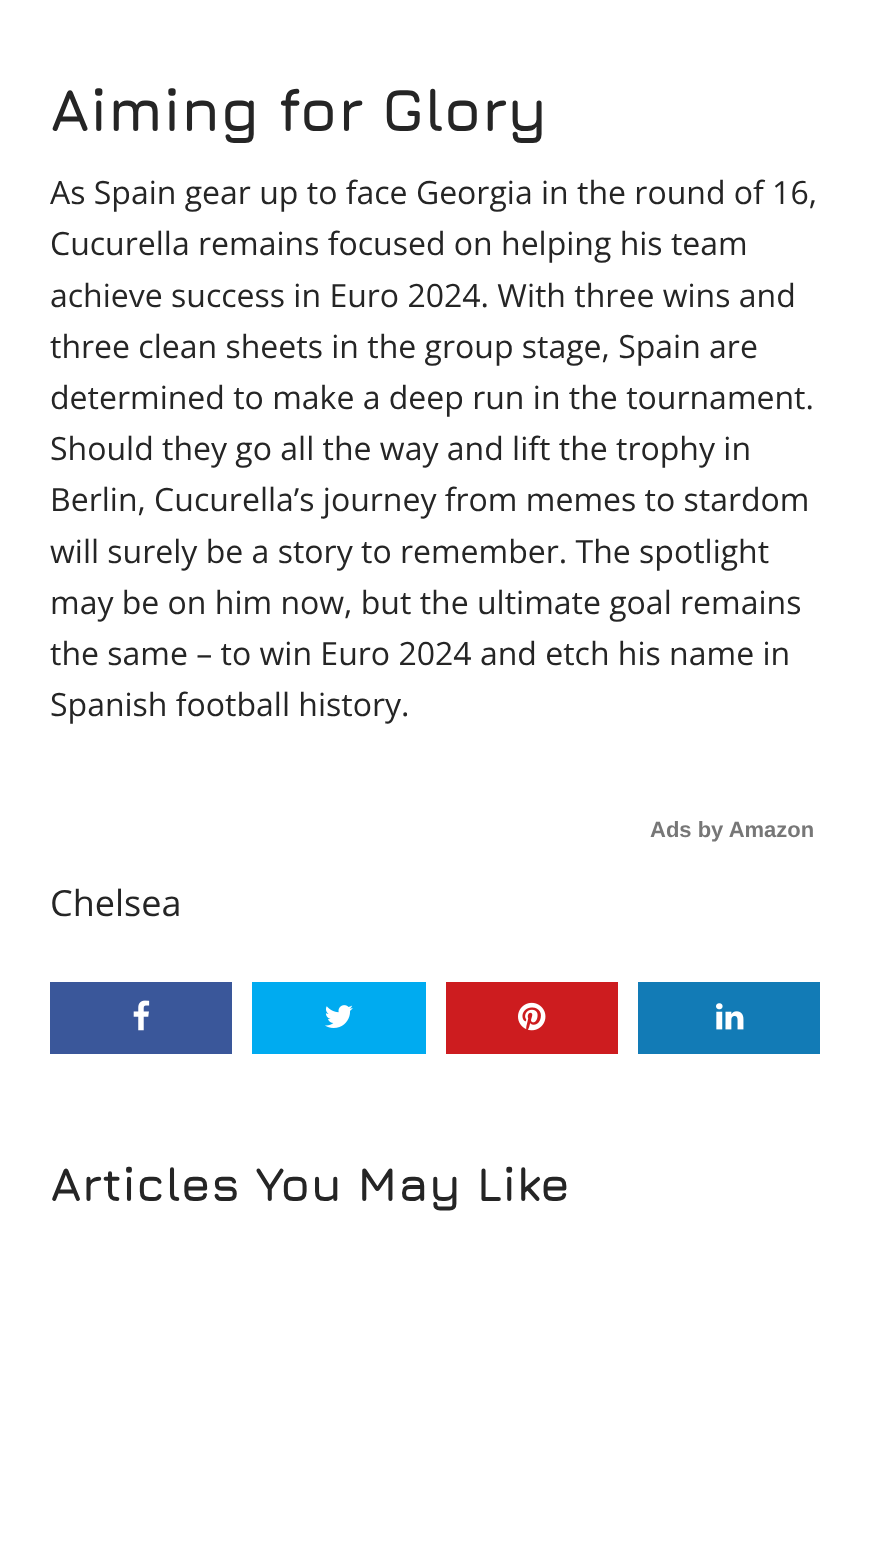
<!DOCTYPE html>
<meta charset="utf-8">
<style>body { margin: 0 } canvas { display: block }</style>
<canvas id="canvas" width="870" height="1568"></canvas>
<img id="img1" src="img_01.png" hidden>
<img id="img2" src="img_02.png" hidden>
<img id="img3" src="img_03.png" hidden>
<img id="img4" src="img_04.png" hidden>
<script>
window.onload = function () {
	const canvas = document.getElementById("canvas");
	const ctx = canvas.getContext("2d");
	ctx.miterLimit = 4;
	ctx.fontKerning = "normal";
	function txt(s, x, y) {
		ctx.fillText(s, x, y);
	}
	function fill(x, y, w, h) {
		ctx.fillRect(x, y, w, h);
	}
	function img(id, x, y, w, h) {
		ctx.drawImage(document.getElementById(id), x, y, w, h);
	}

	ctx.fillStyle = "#FFFFFF";
	fill(0, 0, 870, 1568);
	ctx.fillStyle = "#3A579A";
	fill(50, 982, 182, 72);
	img("img1", 133, 1000, 17, 31);
	ctx.fillStyle = "#00ABF0";
	fill(252, 982, 174, 72);
	img("img2", 325, 1005, 28, 23);
	ctx.fillStyle = "#CD1C1F";
	fill(446, 982, 172, 72);
	img("img3", 518, 1002, 28, 29);
	ctx.fillStyle = "#127BB6";
	fill(638, 982, 182, 72);
	img("img4", 716, 1003, 28, 27);
	ctx.font = "bold 60px Jura";
	ctx.fillStyle = "#252525";
	txt("Aiming for Glory", 50, 131);
	ctx.font = "32px Open Sans";
	txt("As Spain gear up to face Georgia in the round of 16,", 50, 204);
	txt("Cucurella remains focused on helping his team", 50, 255);
	txt("achieve success in Euro 2024. With three wins and", 50, 307);
	txt("three clean sheets in the group stage, Spain are", 50, 358);
	txt("determined to make a deep run in the tournament.", 50, 409);
	txt("Should they go all the way and lift the trophy in", 50, 460);
	txt("Berlin, Cucurella’s journey from memes to stardom", 50, 511);
	txt("will surely be a story to remember. The spotlight", 50, 563);
	txt("may be on him now, but the ultimate goal remains", 50, 614);
	txt("the same – to win Euro 2024 and etch his name in", 50, 665);
	txt("Spanish football history.", 50, 716);
	ctx.font = "bold 22px Liberation Sans";
	ctx.fillStyle = "#777777";
	txt("Ads by Amazon", 650, 837);
	ctx.font = "36px Open Sans";
	ctx.fillStyle = "#252525";
	txt("Chelsea", 50, 916);
	ctx.font = "bold 48px Jura";
	txt("Articles You May Like", 50, 1201);
};
</script>
